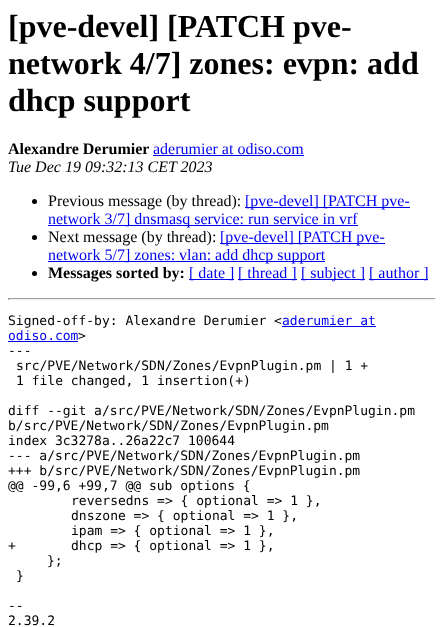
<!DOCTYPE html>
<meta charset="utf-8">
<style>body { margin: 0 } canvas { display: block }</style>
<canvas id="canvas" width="444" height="627"></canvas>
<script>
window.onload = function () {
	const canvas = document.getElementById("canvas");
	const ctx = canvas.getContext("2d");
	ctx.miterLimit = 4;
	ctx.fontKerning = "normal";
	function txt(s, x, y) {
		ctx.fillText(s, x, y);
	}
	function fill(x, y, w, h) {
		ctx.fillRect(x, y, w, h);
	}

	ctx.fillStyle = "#FFFFFF";
	fill(0, 0, 444, 627);
	ctx.fillStyle = "#0000EE";
	fill(153, 155, 151, 1);
	ctx.fillStyle = "#000000";
	ctx.beginPath();
	ctx.arc(34.5, 201.5, 2.5, 0, Math.PI * 2);
	ctx.fill();
	ctx.fillStyle = "#0000EE";
	fill(245, 207, 165, 1);
	fill(48, 225, 310, 1);
	ctx.fillStyle = "#000000";
	ctx.beginPath();
	ctx.arc(34.5, 237.5, 2.5, 0, Math.PI * 2);
	ctx.fill();
	ctx.fillStyle = "#0000EE";
	fill(220, 243, 165, 1);
	fill(48, 261, 277, 1);
	ctx.fillStyle = "#000000";
	ctx.beginPath();
	ctx.arc(34.5, 273.5, 2.5, 0, Math.PI * 2);
	ctx.fill();
	ctx.fillStyle = "#0000EE";
	fill(189, 279, 45, 1);
	fill(238, 279, 59, 1);
	fill(301, 279, 64, 1);
	fill(369, 279, 59, 1);
	ctx.fillStyle = "#9F9F9F";
	fill(8, 298, 428, 1);
	ctx.fillStyle = "#EEEEEE";
	fill(435, 298, 1, 2);
	fill(8, 299, 428, 1);
	ctx.fillStyle = "#9F9F9F";
	fill(8, 298, 1, 2);
	ctx.fillStyle = "#0000EE";
	fill(282, 326, 94, 1);
	fill(8, 341, 70, 1);
	ctx.font = "bold 32px Liberation Serif";
	ctx.fillStyle = "#000000";
	txt("[pve-devel] [PATCH pve-", 8, 37);
	txt("network 4/7] zones: evpn: add", 8, 74);
	txt("dhcp support", 8, 111);
	ctx.font = "bold 16px Liberation Serif";
	txt("Alexandre Derumier", 8, 154);
	ctx.font = "16px Liberation Serif";
	ctx.fillStyle = "#0000EE";
	txt("aderumier at odiso.com", 153, 154);
	ctx.font = "italic 16px Liberation Serif";
	ctx.fillStyle = "#000000";
	txt("Tue Dec 19 09:32:13 CET 2023", 8, 172);
	ctx.font = "16px Liberation Serif";
	txt("Previous message (by thread):", 48, 206);
	ctx.fillStyle = "#0000EE";
	txt("[pve-devel] [PATCH pve-", 245, 206);
	txt("network 3/7] dnsmasq service: run service in vrf", 48, 224);
	ctx.fillStyle = "#000000";
	txt("Next message (by thread):", 48, 242);
	ctx.fillStyle = "#0000EE";
	txt("[pve-devel] [PATCH pve-", 220, 242);
	txt("network 5/7] zones: vlan: add dhcp support", 48, 260);
	ctx.font = "bold 16px Liberation Serif";
	ctx.fillStyle = "#000000";
	txt("Messages sorted by:", 48, 278);
	ctx.font = "16px Liberation Serif";
	ctx.fillStyle = "#0000EE";
	txt("[ date ]", 189, 278);
	txt("[ thread ]", 238, 278);
	txt("[ subject ]", 301, 278);
	txt("[ author ]", 369, 278);
	ctx.font = "13px DejaVu Sans Mono";
	ctx.fillStyle = "#000000";
	txt("Signed-off-by: Alexandre Derumier <", 8, 325);
	ctx.fillStyle = "#0000EE";
	txt("aderumier at", 282, 325);
	txt("odiso.com", 8, 340);
	ctx.fillStyle = "#000000";
	txt(">", 78, 340);
	txt("---", 8, 355);
	txt("src/PVE/Network/SDN/Zones/EvpnPlugin.pm | 1 +", 16, 370);
	txt("1 file changed, 1 insertion(+)", 16, 385);
	txt("diff --git a/src/PVE/Network/SDN/Zones/EvpnPlugin.pm", 8, 415);
	txt("b/src/PVE/Network/SDN/Zones/EvpnPlugin.pm", 8, 430);
	txt("index 3c3278a..26a22c7 100644", 8, 445);
	txt("--- a/src/PVE/Network/SDN/Zones/EvpnPlugin.pm", 8, 460);
	txt("+++ b/src/PVE/Network/SDN/Zones/EvpnPlugin.pm", 8, 475);
	txt("@@ -99,6 +99,7 @@ sub options {", 8, 490);
	txt("reversedns => { optional => 1 },", 71, 505);
	txt("dnszone => { optional => 1 },", 71, 520);
	txt("ipam => { optional => 1 },", 71, 535);
	txt("+", 8, 550);
	txt("dhcp => { optional => 1 },", 71, 550);
	txt("};", 47, 565);
	txt("}", 16, 580);
	txt("--", 8, 610);
	txt("2.39.2", 8, 625);
};
</script>
